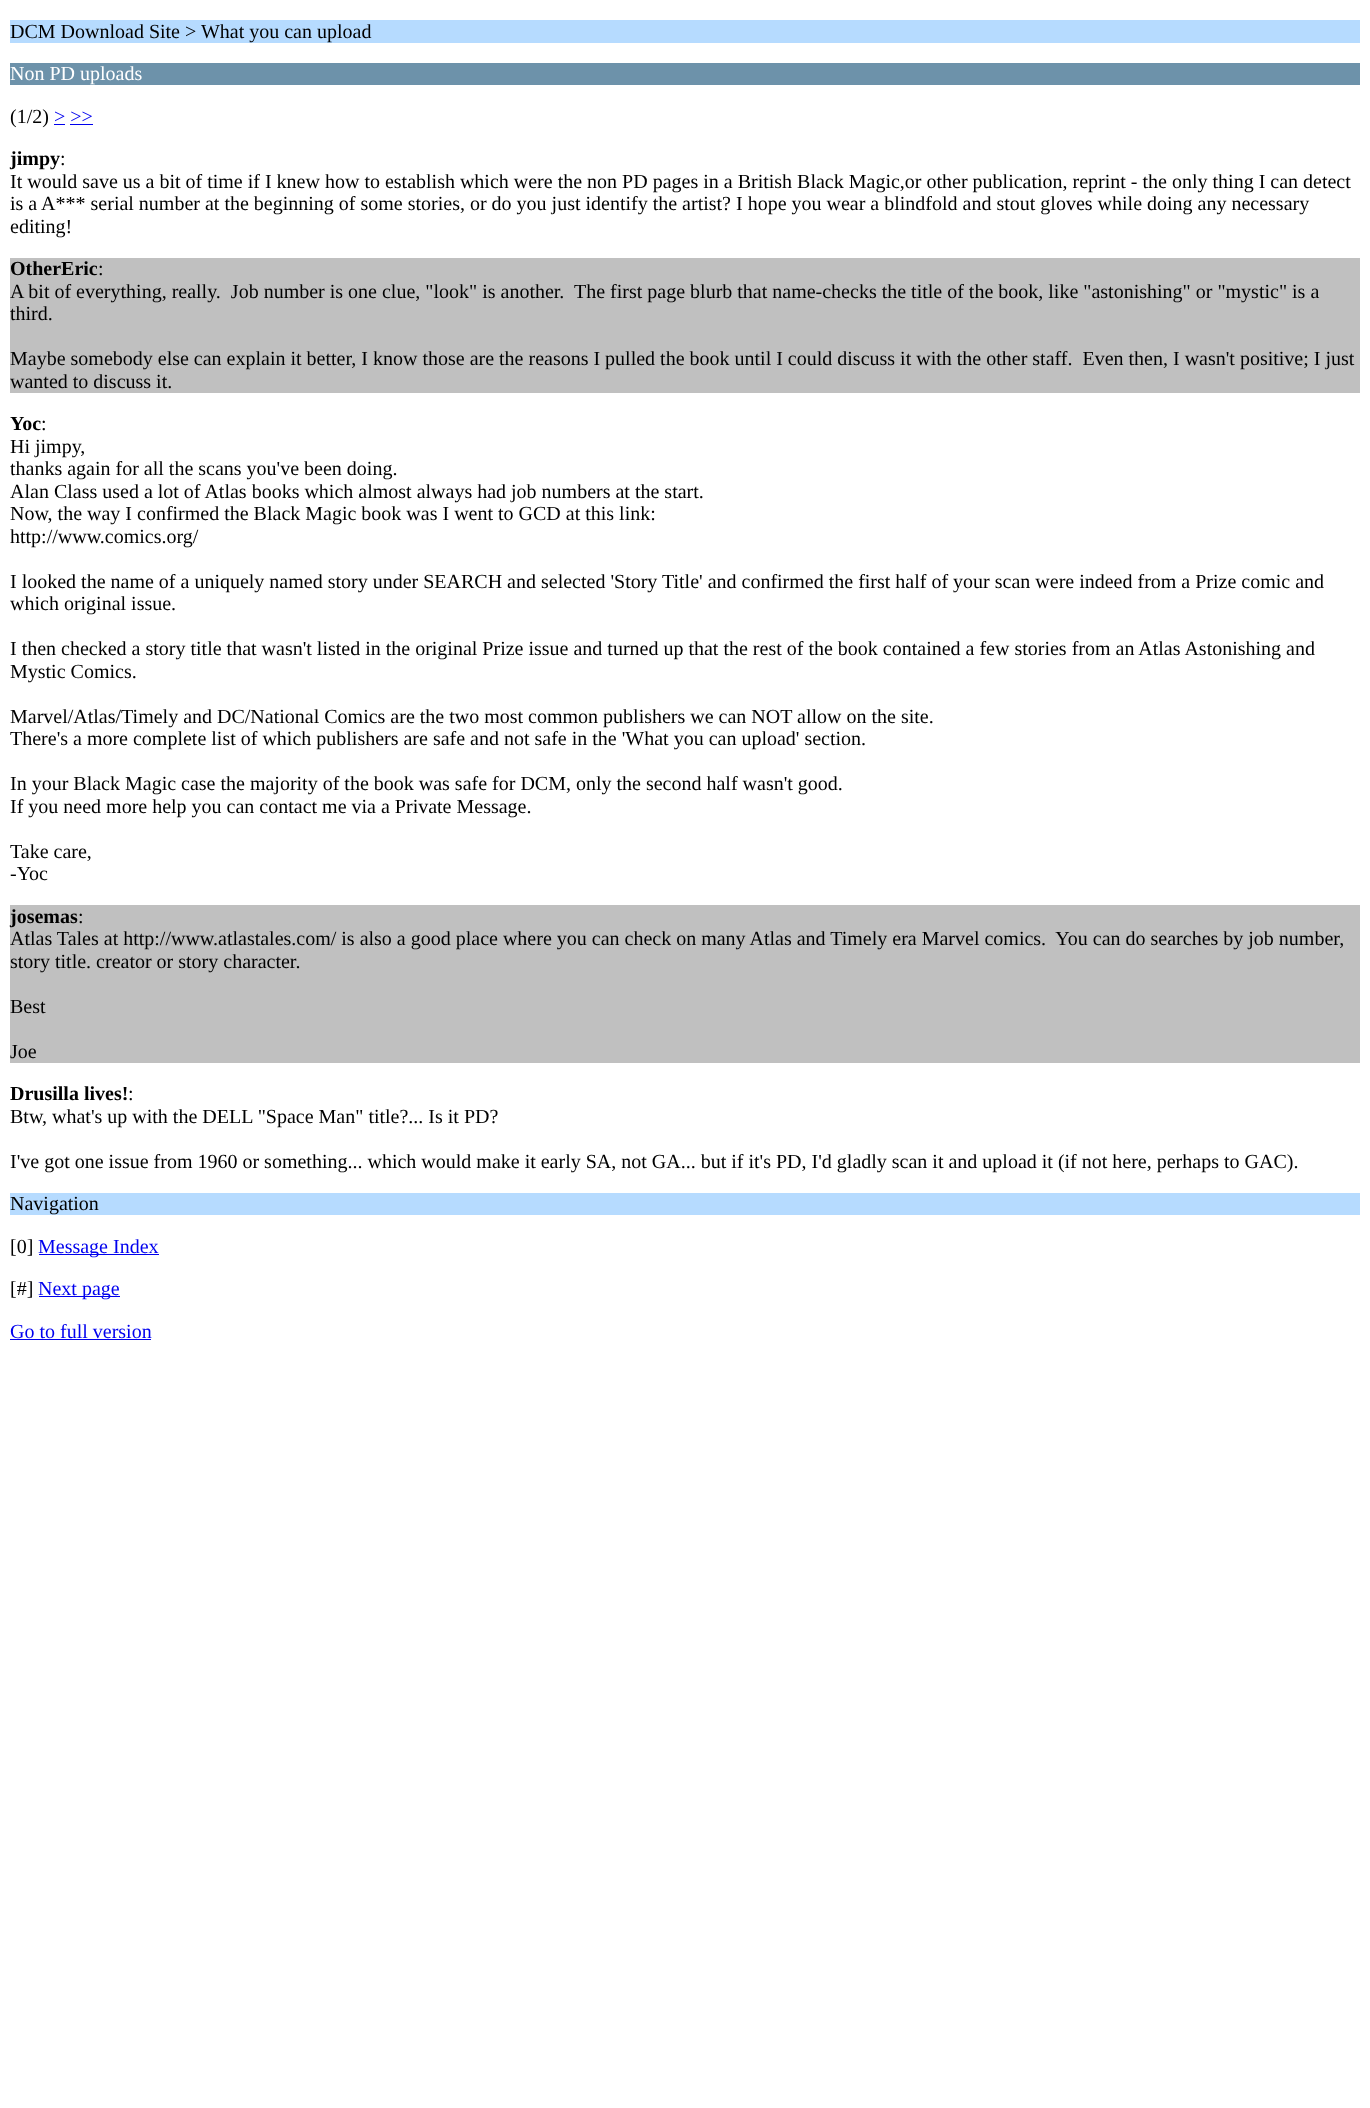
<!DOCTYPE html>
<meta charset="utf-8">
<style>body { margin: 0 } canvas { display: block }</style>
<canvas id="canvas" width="1370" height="2108"></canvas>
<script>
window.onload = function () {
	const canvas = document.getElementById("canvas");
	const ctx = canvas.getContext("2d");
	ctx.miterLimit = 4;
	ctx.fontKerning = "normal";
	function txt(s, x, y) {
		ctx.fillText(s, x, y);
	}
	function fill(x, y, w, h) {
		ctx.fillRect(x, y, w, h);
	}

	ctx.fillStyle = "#FFFFFF";
	fill(0, 0, 1370, 2108);
	ctx.fillStyle = "#B6DBFF";
	fill(10, 20, 1350, 23);
	ctx.fillStyle = "#6D92AA";
	fill(10, 63, 1350, 22);
	ctx.fillStyle = "#0000EE";
	fill(54, 124, 11, 1);
	fill(70, 124, 23, 1);
	ctx.fillStyle = "#C0C0C0";
	fill(10, 258, 1350, 135);
	fill(10, 905, 1350, 158);
	ctx.fillStyle = "#B6DBFF";
	fill(10, 1193, 1350, 22);
	ctx.fillStyle = "#0000EE";
	fill(39, 1254, 120, 1);
	fill(39, 1296, 81, 1);
	fill(10, 1339, 141, 1);
	ctx.font = "20px Liberation Serif";
	ctx.fillStyle = "#000000";
	txt("DCM Download Site > What you can upload", 10, 38);
	ctx.fillStyle = "#FFFFFF";
	txt("Non PD uploads", 10, 80);
	ctx.fillStyle = "#000000";
	txt("(1/2)", 10, 123);
	ctx.fillStyle = "#0000EE";
	txt("> >>", 54, 123);
	ctx.font = "bold 20px Liberation Serif";
	ctx.fillStyle = "#000000";
	txt("jimpy", 10, 165);
	ctx.font = "20px Liberation Serif";
	txt(":", 60, 165);
	txt("It would save us a bit of time if I knew how to establish which were the non PD pages in a British Black Magic,or other publication, reprint - the only thing I can detect", 10, 188);
	txt("is a A*** serial number at the beginning of some stories, or do you just identify the artist? I hope you wear a blindfold and stout gloves while doing any necessary", 10, 210);
	txt("editing!", 10, 233);
	ctx.font = "bold 20px Liberation Serif";
	txt("OtherEric", 10, 275);
	ctx.font = "20px Liberation Serif";
	txt(":", 98, 275);
	txt("A bit of everything, really.  Job number is one clue, \"look\" is another.  The first page blurb that name-checks the title of the book, like \"astonishing\" or \"mystic\" is a", 10, 298);
	txt("third.", 10, 320);
	txt("Maybe somebody else can explain it better, I know those are the reasons I pulled the book until I could discuss it with the other staff.  Even then, I wasn't positive; I just", 10, 365);
	txt("wanted to discuss it.", 10, 388);
	ctx.font = "bold 20px Liberation Serif";
	txt("Yoc", 10, 430);
	ctx.font = "20px Liberation Serif";
	txt(":", 41, 430);
	txt("Hi jimpy,", 10, 453);
	txt("thanks again for all the scans you've been doing.", 10, 475);
	txt("Alan Class used a lot of Atlas books which almost always had job numbers at the start.", 10, 498);
	txt("Now, the way I confirmed the Black Magic book was I went to GCD at this link:", 10, 520);
	txt("http://www.comics.org/", 10, 543);
	txt("I looked the name of a uniquely named story under SEARCH and selected 'Story Title' and confirmed the first half of your scan were indeed from a Prize comic and", 10, 588);
	txt("which original issue.", 10, 610);
	txt("I then checked a story title that wasn't listed in the original Prize issue and turned up that the rest of the book contained a few stories from an Atlas Astonishing and", 10, 655);
	txt("Mystic Comics.", 10, 678);
	txt("Marvel/Atlas/Timely and DC/National Comics are the two most common publishers we can NOT allow on the site.", 10, 723);
	txt("There's a more complete list of which publishers are safe and not safe in the 'What you can upload' section.", 10, 745);
	txt("In your Black Magic case the majority of the book was safe for DCM, only the second half wasn't good.", 10, 790);
	txt("If you need more help you can contact me via a Private Message.", 10, 813);
	txt("Take care,", 10, 858);
	txt("-Yoc", 10, 880);
	ctx.font = "bold 20px Liberation Serif";
	txt("josemas", 10, 923);
	ctx.font = "20px Liberation Serif";
	txt(":", 78, 923);
	txt("Atlas Tales at http://www.atlastales.com/ is also a good place where you can check on many Atlas and Timely era Marvel comics.  You can do searches by job number,", 10, 945);
	txt("story title. creator or story character.", 10, 968);
	txt("Best", 10, 1013);
	txt("Joe", 10, 1058);
	ctx.font = "bold 20px Liberation Serif";
	txt("Drusilla lives!", 10, 1100);
	ctx.font = "20px Liberation Serif";
	txt(":", 128, 1100);
	txt("Btw, what's up with the DELL \"Space Man\" title?... Is it PD?", 10, 1123);
	txt("I've got one issue from 1960 or something... which would make it early SA, not GA... but if it's PD, I'd gladly scan it and upload it (if not here, perhaps to GAC).", 10, 1168);
	txt("Navigation", 10, 1210);
	txt("[0]", 10, 1253);
	ctx.fillStyle = "#0000EE";
	txt("Message Index", 38, 1253);
	ctx.fillStyle = "#000000";
	txt("[#]", 10, 1295);
	ctx.fillStyle = "#0000EE";
	txt("Next page", 38, 1295);
	txt("Go to full version", 10, 1338);
};
</script>
